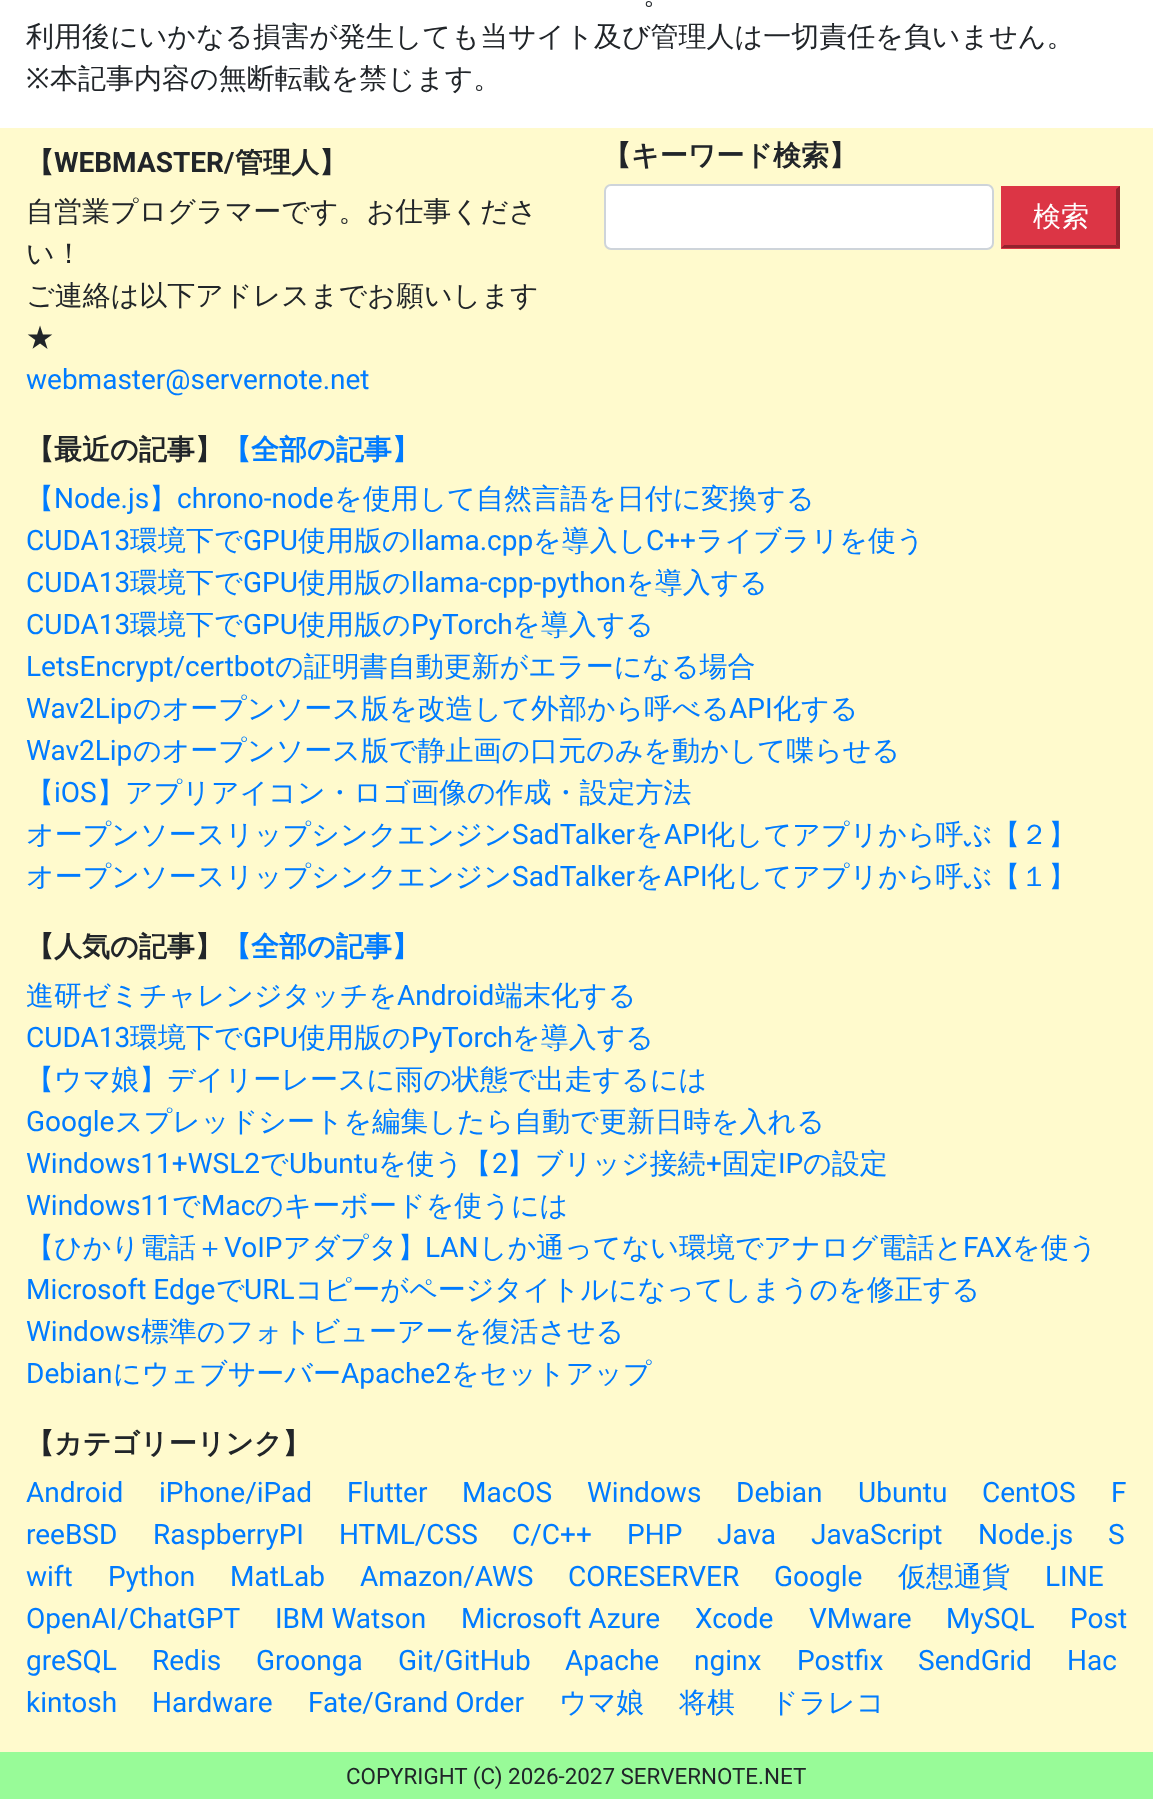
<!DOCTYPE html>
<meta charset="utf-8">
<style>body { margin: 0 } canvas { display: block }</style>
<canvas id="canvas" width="1153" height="1799"></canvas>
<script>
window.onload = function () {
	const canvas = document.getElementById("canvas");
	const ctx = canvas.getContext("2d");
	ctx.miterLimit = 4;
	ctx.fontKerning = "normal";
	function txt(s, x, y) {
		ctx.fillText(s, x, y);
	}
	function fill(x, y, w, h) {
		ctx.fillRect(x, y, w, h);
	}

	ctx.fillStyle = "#FFFFFF";
	fill(0, 0, 1153, 1799);
	ctx.fillStyle = "#FFFACD";
	fill(0, 128, 1153, 1624);
	ctx.fillStyle = "#FFFFFF";
	ctx.beginPath();
	ctx.roundRect(605, 185, 388, 64, 6);
	ctx.fill();
	ctx.strokeStyle = "#CED4DA";
	ctx.lineWidth = 2;
	ctx.stroke();
	ctx.fillStyle = "#DC3545";
	fill(1001, 186, 119, 63);
	ctx.fillStyle = "#93232E";
	ctx.beginPath();
	ctx.moveTo(1120, 186);
	ctx.lineTo(1120, 248);
	ctx.lineTo(1116, 245);
	ctx.lineTo(1116, 189);
	ctx.closePath();
	ctx.fill();
	ctx.beginPath();
	ctx.moveTo(1120, 248);
	ctx.lineTo(1001, 248);
	ctx.lineTo(1004, 245);
	ctx.lineTo(1116, 245);
	ctx.closePath();
	ctx.fill();
	ctx.fillStyle = "#DC3545";
	ctx.beginPath();
	ctx.moveTo(1001, 248);
	ctx.lineTo(1001, 186);
	ctx.lineTo(1004, 189);
	ctx.lineTo(1004, 245);
	ctx.closePath();
	ctx.fill();
	ctx.fillStyle = "#98FB98";
	fill(0, 1752, 1153, 47);
	ctx.font = "500 28px WenQuanYi Zen Hei";
	ctx.fillStyle = "#212529";
	txt("。", 643, 4);
	txt("利用後にいかなる損害が発生しても当サイト及び管理人は一切責任を負いません。", 26, 46);
	ctx.font = "28px Noto Sans";
	txt("※", 26, 88);
	ctx.font = "500 28px WenQuanYi Zen Hei";
	txt("本記事内容の無断転載を禁じます。", 50, 88);
	ctx.font = "bold 28px WenQuanYi Zen Hei";
	txt("【", 26, 172);
	ctx.font = "bold 28px Roboto";
	txt("WEBMASTER/", 54, 172);
	ctx.font = "bold 28px WenQuanYi Zen Hei";
	txt("管理人】", 235, 172);
	ctx.font = "500 28px WenQuanYi Zen Hei";
	txt("自営業プログラマーです。お仕事くださ", 26, 221);
	txt("い！", 26, 263);
	txt("ご連絡は以下アドレスまでお願いします", 26, 305);
	txt("★", 26, 347);
	ctx.font = "28px Roboto";
	ctx.fillStyle = "#007BFF";
	txt("webmaster@servernote.net", 26, 389);
	ctx.font = "bold 28px WenQuanYi Zen Hei";
	ctx.fillStyle = "#212529";
	txt("【キーワード検索】", 603, 165);
	ctx.font = "500 28px WenQuanYi Zen Hei";
	ctx.fillStyle = "#FFFFFF";
	txt("検索", 1033, 226);
	ctx.font = "bold 28px WenQuanYi Zen Hei";
	ctx.fillStyle = "#212529";
	txt("【最近の記事】", 26, 459);
	ctx.fillStyle = "#007BFF";
	txt("【全部の記事】", 223, 459);
	ctx.font = "500 28px WenQuanYi Zen Hei";
	txt("【", 26, 508);
	ctx.font = "28px Roboto";
	txt("Node.js", 54, 508);
	ctx.font = "500 28px WenQuanYi Zen Hei";
	txt("】", 149, 508);
	ctx.font = "28px Roboto";
	txt("chrono-node", 177, 508);
	ctx.font = "500 28px WenQuanYi Zen Hei";
	txt("を使用して自然言語を日付に変換する", 334, 508);
	ctx.font = "28px Roboto";
	txt("CUDA13", 26, 550);
	ctx.font = "500 28px WenQuanYi Zen Hei";
	txt("環境下で", 130, 550);
	ctx.font = "28px Roboto";
	txt("GPU", 243, 550);
	ctx.font = "500 28px WenQuanYi Zen Hei";
	txt("使用版の", 298, 550);
	ctx.font = "28px Roboto";
	txt("llama.cpp", 411, 550);
	ctx.font = "500 28px WenQuanYi Zen Hei";
	txt("を導入し", 533, 550);
	ctx.font = "28px Roboto";
	txt("C++", 646, 550);
	ctx.font = "500 28px WenQuanYi Zen Hei";
	txt("ライブラリを使う", 696, 550);
	ctx.font = "28px Roboto";
	txt("CUDA13", 26, 592);
	ctx.font = "500 28px WenQuanYi Zen Hei";
	txt("環境下で", 130, 592);
	ctx.font = "28px Roboto";
	txt("GPU", 243, 592);
	ctx.font = "500 28px WenQuanYi Zen Hei";
	txt("使用版の", 298, 592);
	ctx.font = "28px Roboto";
	txt("llama-cpp-python", 411, 592);
	ctx.font = "500 28px WenQuanYi Zen Hei";
	txt("を導入する", 626, 592);
	ctx.font = "28px Roboto";
	txt("CUDA13", 26, 634);
	ctx.font = "500 28px WenQuanYi Zen Hei";
	txt("環境下で", 130, 634);
	ctx.font = "28px Roboto";
	txt("GPU", 243, 634);
	ctx.font = "500 28px WenQuanYi Zen Hei";
	txt("使用版の", 298, 634);
	ctx.font = "28px Roboto";
	txt("PyTorch", 411, 634);
	ctx.font = "500 28px WenQuanYi Zen Hei";
	txt("を導入する", 512, 634);
	ctx.font = "28px Roboto";
	txt("LetsEncrypt/certbot", 26, 676);
	ctx.font = "500 28px WenQuanYi Zen Hei";
	txt("の証明書自動更新がエラーになる場合", 275, 676);
	ctx.font = "28px Roboto";
	txt("Wav2Lip", 26, 718);
	ctx.font = "500 28px WenQuanYi Zen Hei";
	txt("のオープンソース版を改造して外部から呼べる", 133, 718);
	ctx.font = "28px Roboto";
	txt("API", 729, 718);
	ctx.font = "500 28px WenQuanYi Zen Hei";
	txt("化する", 773, 718);
	ctx.font = "28px Roboto";
	txt("Wav2Lip", 26, 760);
	ctx.font = "500 28px WenQuanYi Zen Hei";
	txt("のオープンソース版で静止画の口元のみを動かして喋らせる", 133, 760);
	txt("【", 26, 802);
	ctx.font = "28px Roboto";
	txt("iOS", 54, 802);
	ctx.font = "500 28px WenQuanYi Zen Hei";
	txt("】アプリアイコン・ロゴ画像の作成・設定方法", 97, 802);
	txt("オープンソースリップシンクエンジン", 26, 844);
	ctx.font = "28px Roboto";
	txt("SadTalker", 512, 844);
	ctx.font = "500 28px WenQuanYi Zen Hei";
	txt("を", 635, 844);
	ctx.font = "28px Roboto";
	txt("API", 664, 844);
	ctx.font = "500 28px WenQuanYi Zen Hei";
	txt("化してアプリから呼ぶ【２】", 707, 844);
	txt("オープンソースリップシンクエンジン", 26, 886);
	ctx.font = "28px Roboto";
	txt("SadTalker", 512, 886);
	ctx.font = "500 28px WenQuanYi Zen Hei";
	txt("を", 635, 886);
	ctx.font = "28px Roboto";
	txt("API", 664, 886);
	ctx.font = "500 28px WenQuanYi Zen Hei";
	txt("化してアプリから呼ぶ【１】", 707, 886);
	ctx.font = "bold 28px WenQuanYi Zen Hei";
	ctx.fillStyle = "#212529";
	txt("【人気の記事】", 26, 956);
	ctx.fillStyle = "#007BFF";
	txt("【全部の記事】", 223, 956);
	ctx.font = "500 28px WenQuanYi Zen Hei";
	txt("進研ゼミチャレンジタッチを", 26, 1005);
	ctx.font = "28px Roboto";
	txt("Android", 397, 1005);
	ctx.font = "500 28px WenQuanYi Zen Hei";
	txt("端末化する", 495, 1005);
	ctx.font = "28px Roboto";
	txt("CUDA13", 26, 1047);
	ctx.font = "500 28px WenQuanYi Zen Hei";
	txt("環境下で", 130, 1047);
	ctx.font = "28px Roboto";
	txt("GPU", 243, 1047);
	ctx.font = "500 28px WenQuanYi Zen Hei";
	txt("使用版の", 298, 1047);
	ctx.font = "28px Roboto";
	txt("PyTorch", 411, 1047);
	ctx.font = "500 28px WenQuanYi Zen Hei";
	txt("を導入する", 512, 1047);
	txt("【ウマ娘】デイリーレースに雨の状態で出走するには", 26, 1089);
	ctx.font = "28px Roboto";
	txt("Google", 26, 1131);
	ctx.font = "500 28px WenQuanYi Zen Hei";
	txt("スプレッドシートを編集したら自動で更新日時を入れる", 115, 1131);
	ctx.font = "28px Roboto";
	txt("Windows11+WSL2", 26, 1173);
	ctx.font = "500 28px WenQuanYi Zen Hei";
	txt("で", 260, 1173);
	ctx.font = "28px Roboto";
	txt("Ubuntu", 289, 1173);
	ctx.font = "500 28px WenQuanYi Zen Hei";
	txt("を使う【", 378, 1173);
	ctx.font = "28px Roboto";
	txt("2", 492, 1173);
	ctx.font = "500 28px WenQuanYi Zen Hei";
	txt("】ブリッジ接続", 507, 1173);
	ctx.font = "28px Roboto";
	txt("+", 706, 1173);
	ctx.font = "500 28px WenQuanYi Zen Hei";
	txt("固定", 722, 1173);
	ctx.font = "28px Roboto";
	txt("IP", 778, 1173);
	ctx.font = "500 28px WenQuanYi Zen Hei";
	txt("の設定", 803, 1173);
	ctx.font = "28px Roboto";
	txt("Windows11", 26, 1215);
	ctx.font = "500 28px WenQuanYi Zen Hei";
	txt("で", 172, 1215);
	ctx.font = "28px Roboto";
	txt("Mac", 201, 1215);
	ctx.font = "500 28px WenQuanYi Zen Hei";
	txt("のキーボードを使うには", 255, 1215);
	txt("【ひかり電話＋", 26, 1257);
	ctx.font = "28px Roboto";
	txt("VoIP", 224, 1257);
	ctx.font = "500 28px WenQuanYi Zen Hei";
	txt("アダプタ】", 283, 1257);
	ctx.font = "28px Roboto";
	txt("LAN", 425, 1257);
	ctx.font = "500 28px WenQuanYi Zen Hei";
	txt("しか通ってない環境でアナログ電話と", 479, 1257);
	ctx.font = "28px Roboto";
	txt("FAX", 963, 1257);
	ctx.font = "500 28px WenQuanYi Zen Hei";
	txt("を使う", 1012, 1257);
	ctx.font = "28px Roboto";
	txt("Microsoft Edge", 26, 1299);
	ctx.font = "500 28px WenQuanYi Zen Hei";
	txt("で", 216, 1299);
	ctx.font = "28px Roboto";
	txt("URL", 244, 1299);
	ctx.font = "500 28px WenQuanYi Zen Hei";
	txt("コピーがページタイトルになってしまうのを修正する", 295, 1299);
	ctx.font = "28px Roboto";
	txt("Windows", 26, 1341);
	ctx.font = "500 28px WenQuanYi Zen Hei";
	txt("標準のフォトビューアーを復活させる", 141, 1341);
	ctx.font = "28px Roboto";
	txt("Debian", 26, 1383);
	ctx.font = "500 28px WenQuanYi Zen Hei";
	txt("にウェブサーバー", 113, 1383);
	ctx.font = "28px Roboto";
	txt("Apache2", 341, 1383);
	ctx.font = "500 28px WenQuanYi Zen Hei";
	txt("をセットアップ", 451, 1383);
	ctx.font = "bold 28px WenQuanYi Zen Hei";
	ctx.fillStyle = "#212529";
	txt("【カテゴリーリンク】", 26, 1453);
	ctx.font = "28px Roboto";
	ctx.fillStyle = "#007BFF";
	txt("Android", 26, 1502);
	txt("iPhone/iPad", 159, 1502);
	txt("Flutter", 347, 1502);
	txt("MacOS", 462, 1502);
	txt("Windows", 587, 1502);
	txt("Debian", 736, 1502);
	txt("Ubuntu", 858, 1502);
	txt("CentOS", 982, 1502);
	txt("F", 1111, 1502);
	txt("reeBSD", 26, 1544);
	txt("RaspberryPI", 153, 1544);
	txt("HTML/CSS", 339, 1544);
	txt("C/C++", 512, 1544);
	txt("PHP", 627, 1544);
	txt("Java", 717, 1544);
	txt("JavaScript", 811, 1544);
	txt("Node.js", 978, 1544);
	txt("S", 1108, 1544);
	txt("wift", 26, 1586);
	txt("Python", 108, 1586);
	txt("MatLab", 230, 1586);
	txt("Amazon/AWS", 360, 1586);
	txt("CORESERVER", 568, 1586);
	txt("Google", 774, 1586);
	ctx.font = "500 28px WenQuanYi Zen Hei";
	txt("仮想通貨", 898, 1586);
	ctx.font = "28px Roboto";
	txt("LINE", 1045, 1586);
	txt("OpenAI/ChatGPT", 26, 1628);
	txt("IBM Watson", 275, 1628);
	txt("Microsoft Azure", 461, 1628);
	txt("Xcode", 695, 1628);
	txt("VMware", 809, 1628);
	txt("MySQL", 946, 1628);
	txt("Post", 1070, 1628);
	txt("greSQL", 26, 1670);
	txt("Redis", 152, 1670);
	txt("Groonga", 256, 1670);
	txt("Git/GitHub", 398, 1670);
	txt("Apache", 565, 1670);
	txt("nginx", 694, 1670);
	txt("Postfix", 797, 1670);
	txt("SendGrid", 918, 1670);
	txt("Hac", 1067, 1670);
	txt("kintosh", 26, 1712);
	txt("Hardware", 152, 1712);
	txt("Fate/Grand Order", 308, 1712);
	ctx.font = "500 28px WenQuanYi Zen Hei";
	txt("ウマ娘", 559, 1712);
	txt("将棋", 679, 1712);
	txt("ドラレコ", 770, 1712);
	ctx.font = "22.4px Roboto";
	ctx.fillStyle = "#212529";
	txt("COPYRIGHT (C) 2026-2027 SERVERNOTE.NET", 346, 1784);
};
</script>
